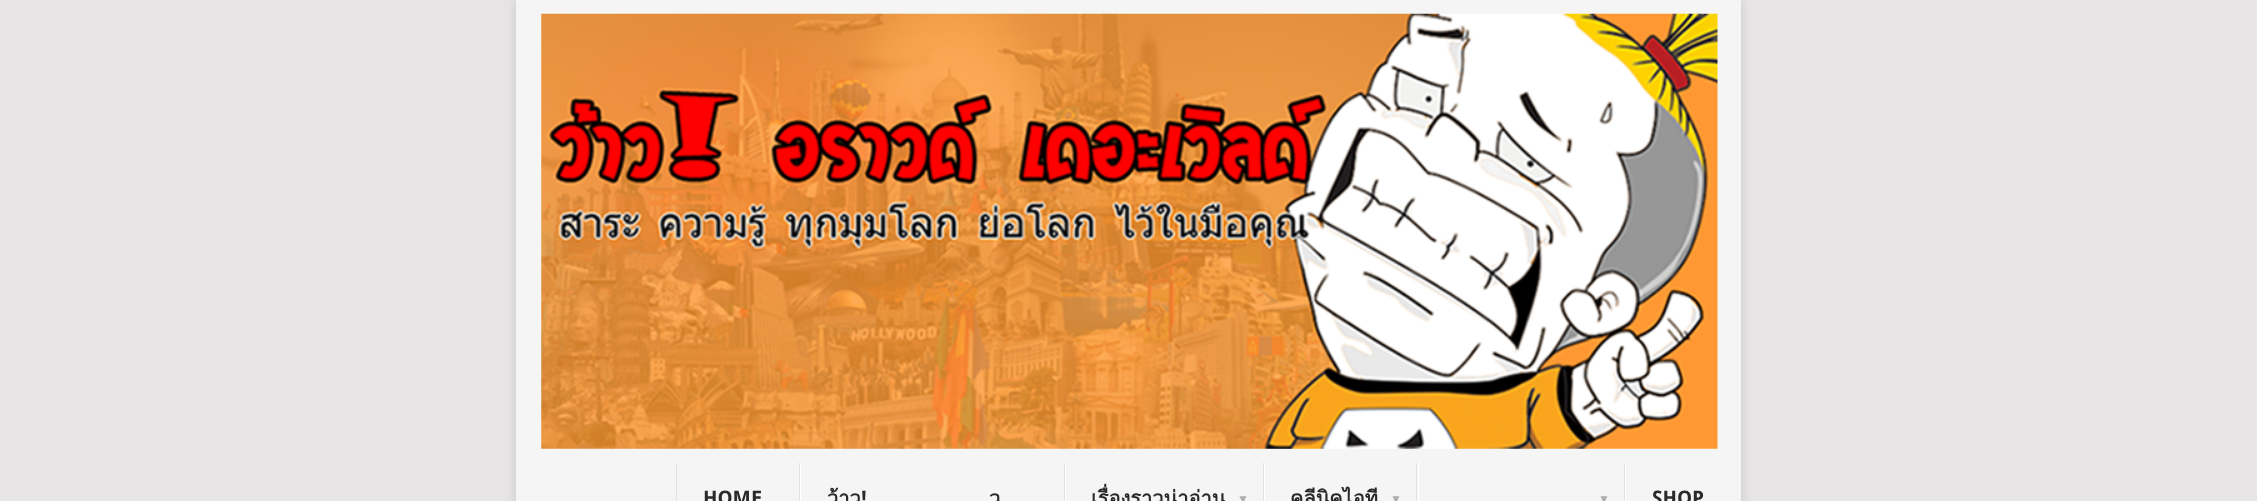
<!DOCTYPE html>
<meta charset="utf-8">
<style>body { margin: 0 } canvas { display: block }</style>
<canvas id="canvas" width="2257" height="501"></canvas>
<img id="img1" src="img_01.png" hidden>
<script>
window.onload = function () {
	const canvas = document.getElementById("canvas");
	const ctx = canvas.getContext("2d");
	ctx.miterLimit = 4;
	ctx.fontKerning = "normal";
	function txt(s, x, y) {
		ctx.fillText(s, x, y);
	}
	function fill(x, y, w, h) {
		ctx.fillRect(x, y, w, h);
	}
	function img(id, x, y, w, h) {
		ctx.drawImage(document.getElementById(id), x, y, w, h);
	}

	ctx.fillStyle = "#E7E5E6";
	fill(0, 0, 2257, 501);
	ctx.fillStyle = "rgba(50, 50, 50, 0.17)";
	ctx.filter = "blur(6px)";
	ctx.beginPath();
	ctx.rect(516, 0, 1225, 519);
	ctx.fill();
	ctx.filter = "none";
	ctx.fillStyle = "#F5F5F5";
	fill(516, 0, 1225, 501);
	img("img1", 541, 13, 1177, 436);
	ctx.fillStyle = "#E2E2E2";
	fill(799, 463, 1, 38);
	fill(676, 463, 1, 38);
	fill(1064, 463, 1, 38);
	ctx.fillStyle = "#FFFFFF";
	fill(800, 463, 1, 38);
	ctx.fillStyle = "#E2E2E2";
	fill(1263, 463, 1, 38);
	ctx.fillStyle = "#FFFFFF";
	fill(1065, 463, 1, 38);
	ctx.fillStyle = "#E2E2E2";
	fill(1416, 463, 1, 38);
	ctx.fillStyle = "#FFFFFF";
	fill(1264, 463, 1, 38);
	ctx.fillStyle = "#E2E2E2";
	fill(1624, 463, 1, 38);
	ctx.fillStyle = "#FFFFFF";
	fill(1418, 463, 1, 38);
	fill(1625, 463, 1, 38);
	ctx.font = "bold 20px Droid Sans";
	ctx.fillStyle = "#2A2A2A";
	txt("HOME", 703, 505);
	ctx.font = "bold 20px Loma";
	txt("ว้าว", 827, 505);
	ctx.font = "bold 20px Droid Sans";
	txt("!", 861, 505);
	ctx.wordSpacing = "-1px";
	ctx.font = "bold 20px Loma";
	txt("ว", 989, 505);
	ctx.wordSpacing = "0px";
	txt("เรื่องราวน่าอ่าน", 1091, 505);
	ctx.font = "bold 12px Liberation Sans";
	ctx.fillStyle = "#ADADAD";
	txt("▼", 1237, 503);
	ctx.font = "bold 20px Loma";
	ctx.fillStyle = "#2A2A2A";
	txt("คลีนิคไอที", 1290, 505);
	ctx.font = "bold 12px Liberation Sans";
	ctx.fillStyle = "#ADADAD";
	txt("▼", 1390, 503);
	txt("▼", 1598, 503);
	ctx.font = "bold 20px Droid Sans";
	ctx.fillStyle = "#2A2A2A";
	txt("SHOP", 1652, 505);
};
</script>
